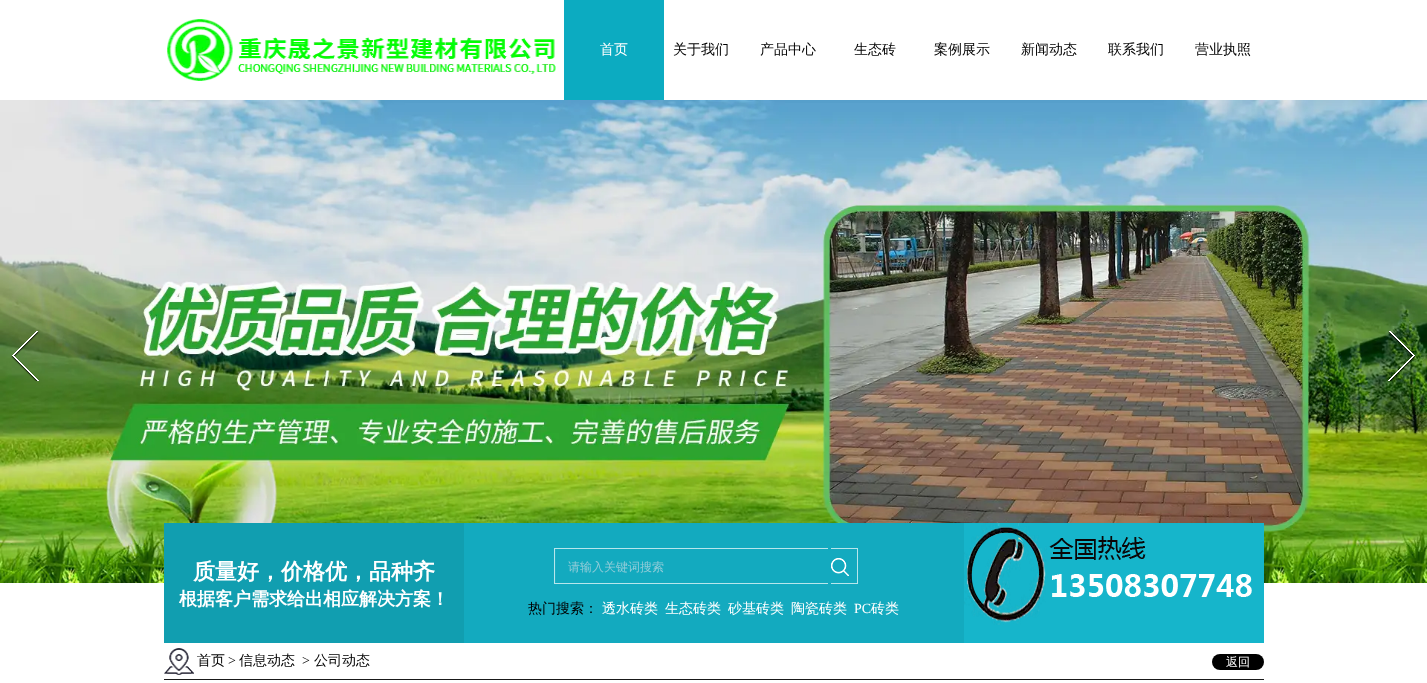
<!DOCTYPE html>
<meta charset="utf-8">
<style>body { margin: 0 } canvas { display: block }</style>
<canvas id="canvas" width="1427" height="683"></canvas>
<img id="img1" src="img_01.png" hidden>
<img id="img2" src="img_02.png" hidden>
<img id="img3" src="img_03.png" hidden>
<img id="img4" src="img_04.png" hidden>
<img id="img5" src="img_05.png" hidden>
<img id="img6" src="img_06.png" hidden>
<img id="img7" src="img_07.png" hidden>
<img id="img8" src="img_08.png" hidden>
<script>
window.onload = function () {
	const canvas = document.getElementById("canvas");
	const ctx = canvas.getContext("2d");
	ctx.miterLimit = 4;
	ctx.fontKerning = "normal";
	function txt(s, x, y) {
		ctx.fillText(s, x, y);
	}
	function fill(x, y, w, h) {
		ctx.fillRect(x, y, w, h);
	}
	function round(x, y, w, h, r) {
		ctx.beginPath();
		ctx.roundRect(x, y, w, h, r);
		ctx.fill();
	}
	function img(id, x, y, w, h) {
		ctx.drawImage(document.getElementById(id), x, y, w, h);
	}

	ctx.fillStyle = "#FFFFFF";
	fill(0, 0, 1427, 683);
	img("img1", 167, 19, 389, 62);
	ctx.fillStyle = "#0CABC1";
	fill(564, 0, 100, 100);
	img("img2", 0, 100, 1427, 483);
	img("img3", 11, 331, 29, 50);
	img("img4", 1387, 331, 29, 50);
	ctx.fillStyle = "#119EB0";
	fill(164, 523, 300, 120);
	ctx.fillStyle = "#13AABF";
	fill(464, 523, 500, 120);
	img("img5", 554, 548, 274, 36);
	img("img6", 831, 548, 27, 36);
	ctx.fillStyle = "#16B5CB";
	fill(964, 523, 300, 120);
	img("img7", 964, 523, 288, 102);
	img("img8", 164, 648, 30, 27);
	ctx.fillStyle = "#191919";
	fill(164, 679, 1100, 1);
	ctx.fillStyle = "#000000";
	round(1212, 654, 52, 16, 8);
	ctx.font = "500 14px WenQuanYi Zen Hei";
	ctx.fillStyle = "#FFFFFF";
	txt("首页", 600, 54);
	ctx.fillStyle = "#000000";
	txt("关于我们", 673, 54);
	txt("产品中心", 760, 54);
	txt("生态砖", 854, 54);
	txt("案例展示", 934, 54);
	txt("新闻动态", 1021, 54);
	txt("联系我们", 1108, 54);
	txt("营业执照", 1195, 54);
	ctx.font = "bold 22px WenQuanYi Zen Hei";
	ctx.fillStyle = "#FFFFFF";
	txt("质量好，价格优，品种齐", 193, 579);
	ctx.font = "bold 18px WenQuanYi Zen Hei";
	txt("根据客户需求给出相应解决方案！", 179, 605);
	ctx.font = "500 12px WenQuanYi Zen Hei";
	ctx.fillStyle = "#91CCD8";
	txt("请输入关键词搜索", 568, 571);
	ctx.font = "500 14px WenQuanYi Zen Hei";
	ctx.fillStyle = "#000000";
	txt("热门搜索：", 528, 613);
	ctx.fillStyle = "#FFFFFF";
	txt("透水砖类", 602, 613);
	txt("生态砖类", 665, 613);
	txt("砂基砖类", 728, 613);
	txt("陶瓷砖类", 791, 613);
	ctx.font = "14px Liberation Serif";
	txt("PC", 854, 613);
	ctx.font = "500 14px WenQuanYi Zen Hei";
	txt("砖类", 871, 613);
	ctx.fillStyle = "#000000";
	txt("首页", 197, 665);
	ctx.font = "14px Liberation Serif";
	txt(">", 228, 665);
	ctx.font = "500 14px WenQuanYi Zen Hei";
	txt("信息动态", 239, 665);
	ctx.font = "14px Liberation Serif";
	txt(">", 302, 665);
	ctx.font = "500 14px WenQuanYi Zen Hei";
	txt("公司动态", 314, 665);
	ctx.font = "500 12px WenQuanYi Zen Hei";
	ctx.fillStyle = "#FFFFFF";
	txt("返回", 1226, 666);
};
</script>
